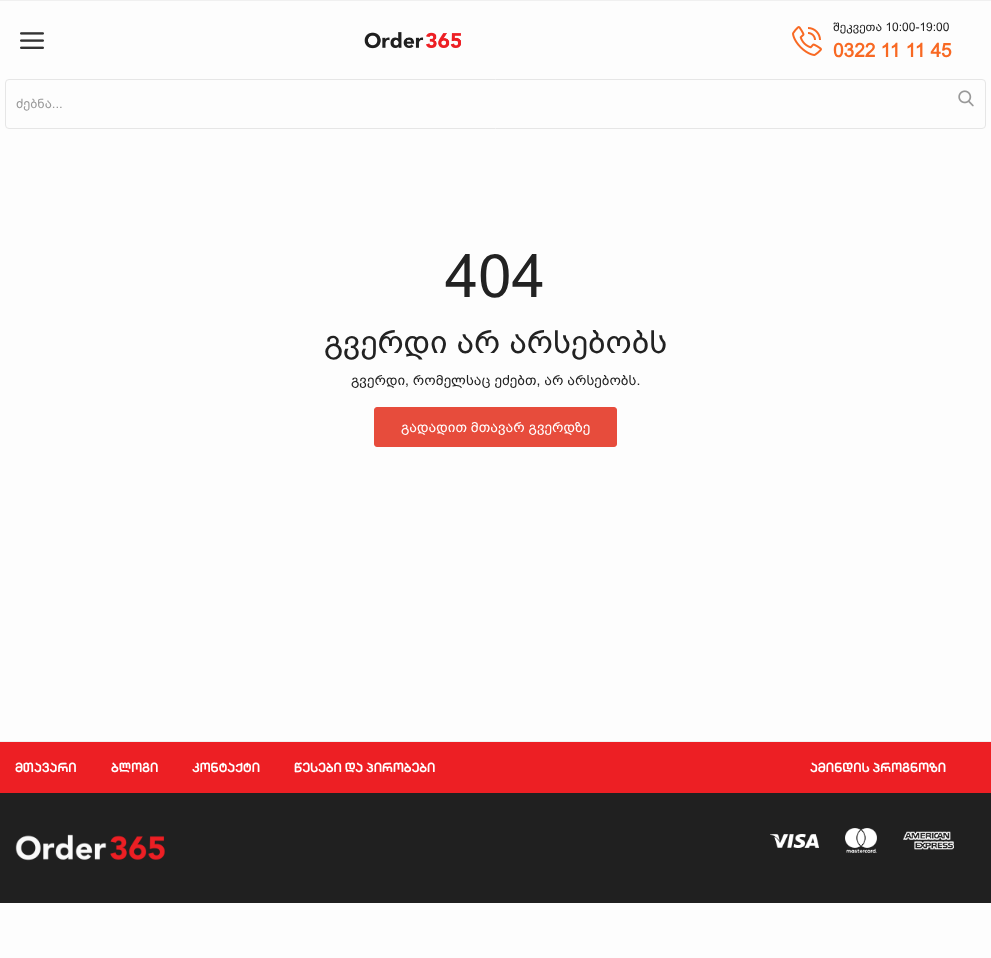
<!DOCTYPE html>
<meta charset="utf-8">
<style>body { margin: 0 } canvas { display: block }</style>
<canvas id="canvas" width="991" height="958"></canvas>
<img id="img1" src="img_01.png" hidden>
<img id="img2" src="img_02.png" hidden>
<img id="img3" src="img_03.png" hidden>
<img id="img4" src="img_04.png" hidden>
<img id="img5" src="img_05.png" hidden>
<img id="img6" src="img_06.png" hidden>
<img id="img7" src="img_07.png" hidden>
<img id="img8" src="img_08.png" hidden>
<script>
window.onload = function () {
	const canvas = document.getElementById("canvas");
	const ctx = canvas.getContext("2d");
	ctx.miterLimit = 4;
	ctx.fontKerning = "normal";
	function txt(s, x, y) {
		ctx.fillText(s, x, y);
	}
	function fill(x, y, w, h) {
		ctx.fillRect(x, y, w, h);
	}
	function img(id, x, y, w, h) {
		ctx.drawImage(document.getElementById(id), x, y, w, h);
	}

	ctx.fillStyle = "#FDFDFD";
	fill(0, 0, 991, 958);
	ctx.fillStyle = "#F0F0F0";
	fill(0, 0, 991, 1);
	img("img1", 20, 32, 24, 17);
	img("img2", 364, 32, 97, 17);
	img("img3", 792, 26, 30, 30);
	ctx.beginPath();
	ctx.roundRect(5.5, 79.5, 980, 49, 3.5);
	ctx.strokeStyle = "#E6E6E6";
	ctx.stroke();
	img("img4", 958, 90, 16, 17);
	ctx.fillStyle = "#E74C3C";
	ctx.beginPath();
	ctx.roundRect(374.5, 407.5, 242, 39, 2.5);
	ctx.fill();
	ctx.strokeStyle = "#E74C3C";
	ctx.stroke();
	ctx.fillStyle = "#F0F0F0";
	fill(0, 741, 991, 1);
	ctx.fillStyle = "#ED1F24";
	fill(0, 742, 991, 51);
	ctx.fillStyle = "#202020";
	fill(0, 793, 991, 110);
	img("img5", 15, 834, 150, 27);
	img("img6", 770, 834, 49, 14);
	img("img7", 845, 828, 32, 25);
	img("img8", 903, 831, 51, 19);
	ctx.font = "12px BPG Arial";
	ctx.fillStyle = "#222222";
	txt("შეკვეთა 10:00-19:00", 833, 31);
	ctx.font = "bold 19px BPG Arial";
	ctx.fillStyle = "#F86923";
	txt("0322 11 11 45", 833, 57);
	ctx.font = "13px BPG Arial";
	ctx.fillStyle = "#999999";
	txt("ძებნა...", 16, 108);
	ctx.font = "60px BPG Arial";
	ctx.fillStyle = "#222222";
	txt("404", 445, 297);
	ctx.font = "32px BPG Arial";
	txt("გვერდი არ არსებობს", 324, 353);
	ctx.font = "14px BPG Arial";
	txt("გვერდი, რომელსაც ეძებთ, არ არსებობს.", 351, 385);
	ctx.fillStyle = "#FFFFFF";
	txt("გადადით მთავარ გვერდზე", 401, 432);
	ctx.font = "bold 13px 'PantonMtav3'";
	txt("მთავარი", 15, 772);
	txt("ბლოგი", 111, 772);
	txt("კონტაქტი", 192, 772);
	txt("წესები და პირობები", 294, 772);
	txt("ამინდის პროგნოზი", 810, 772);
};
</script>
